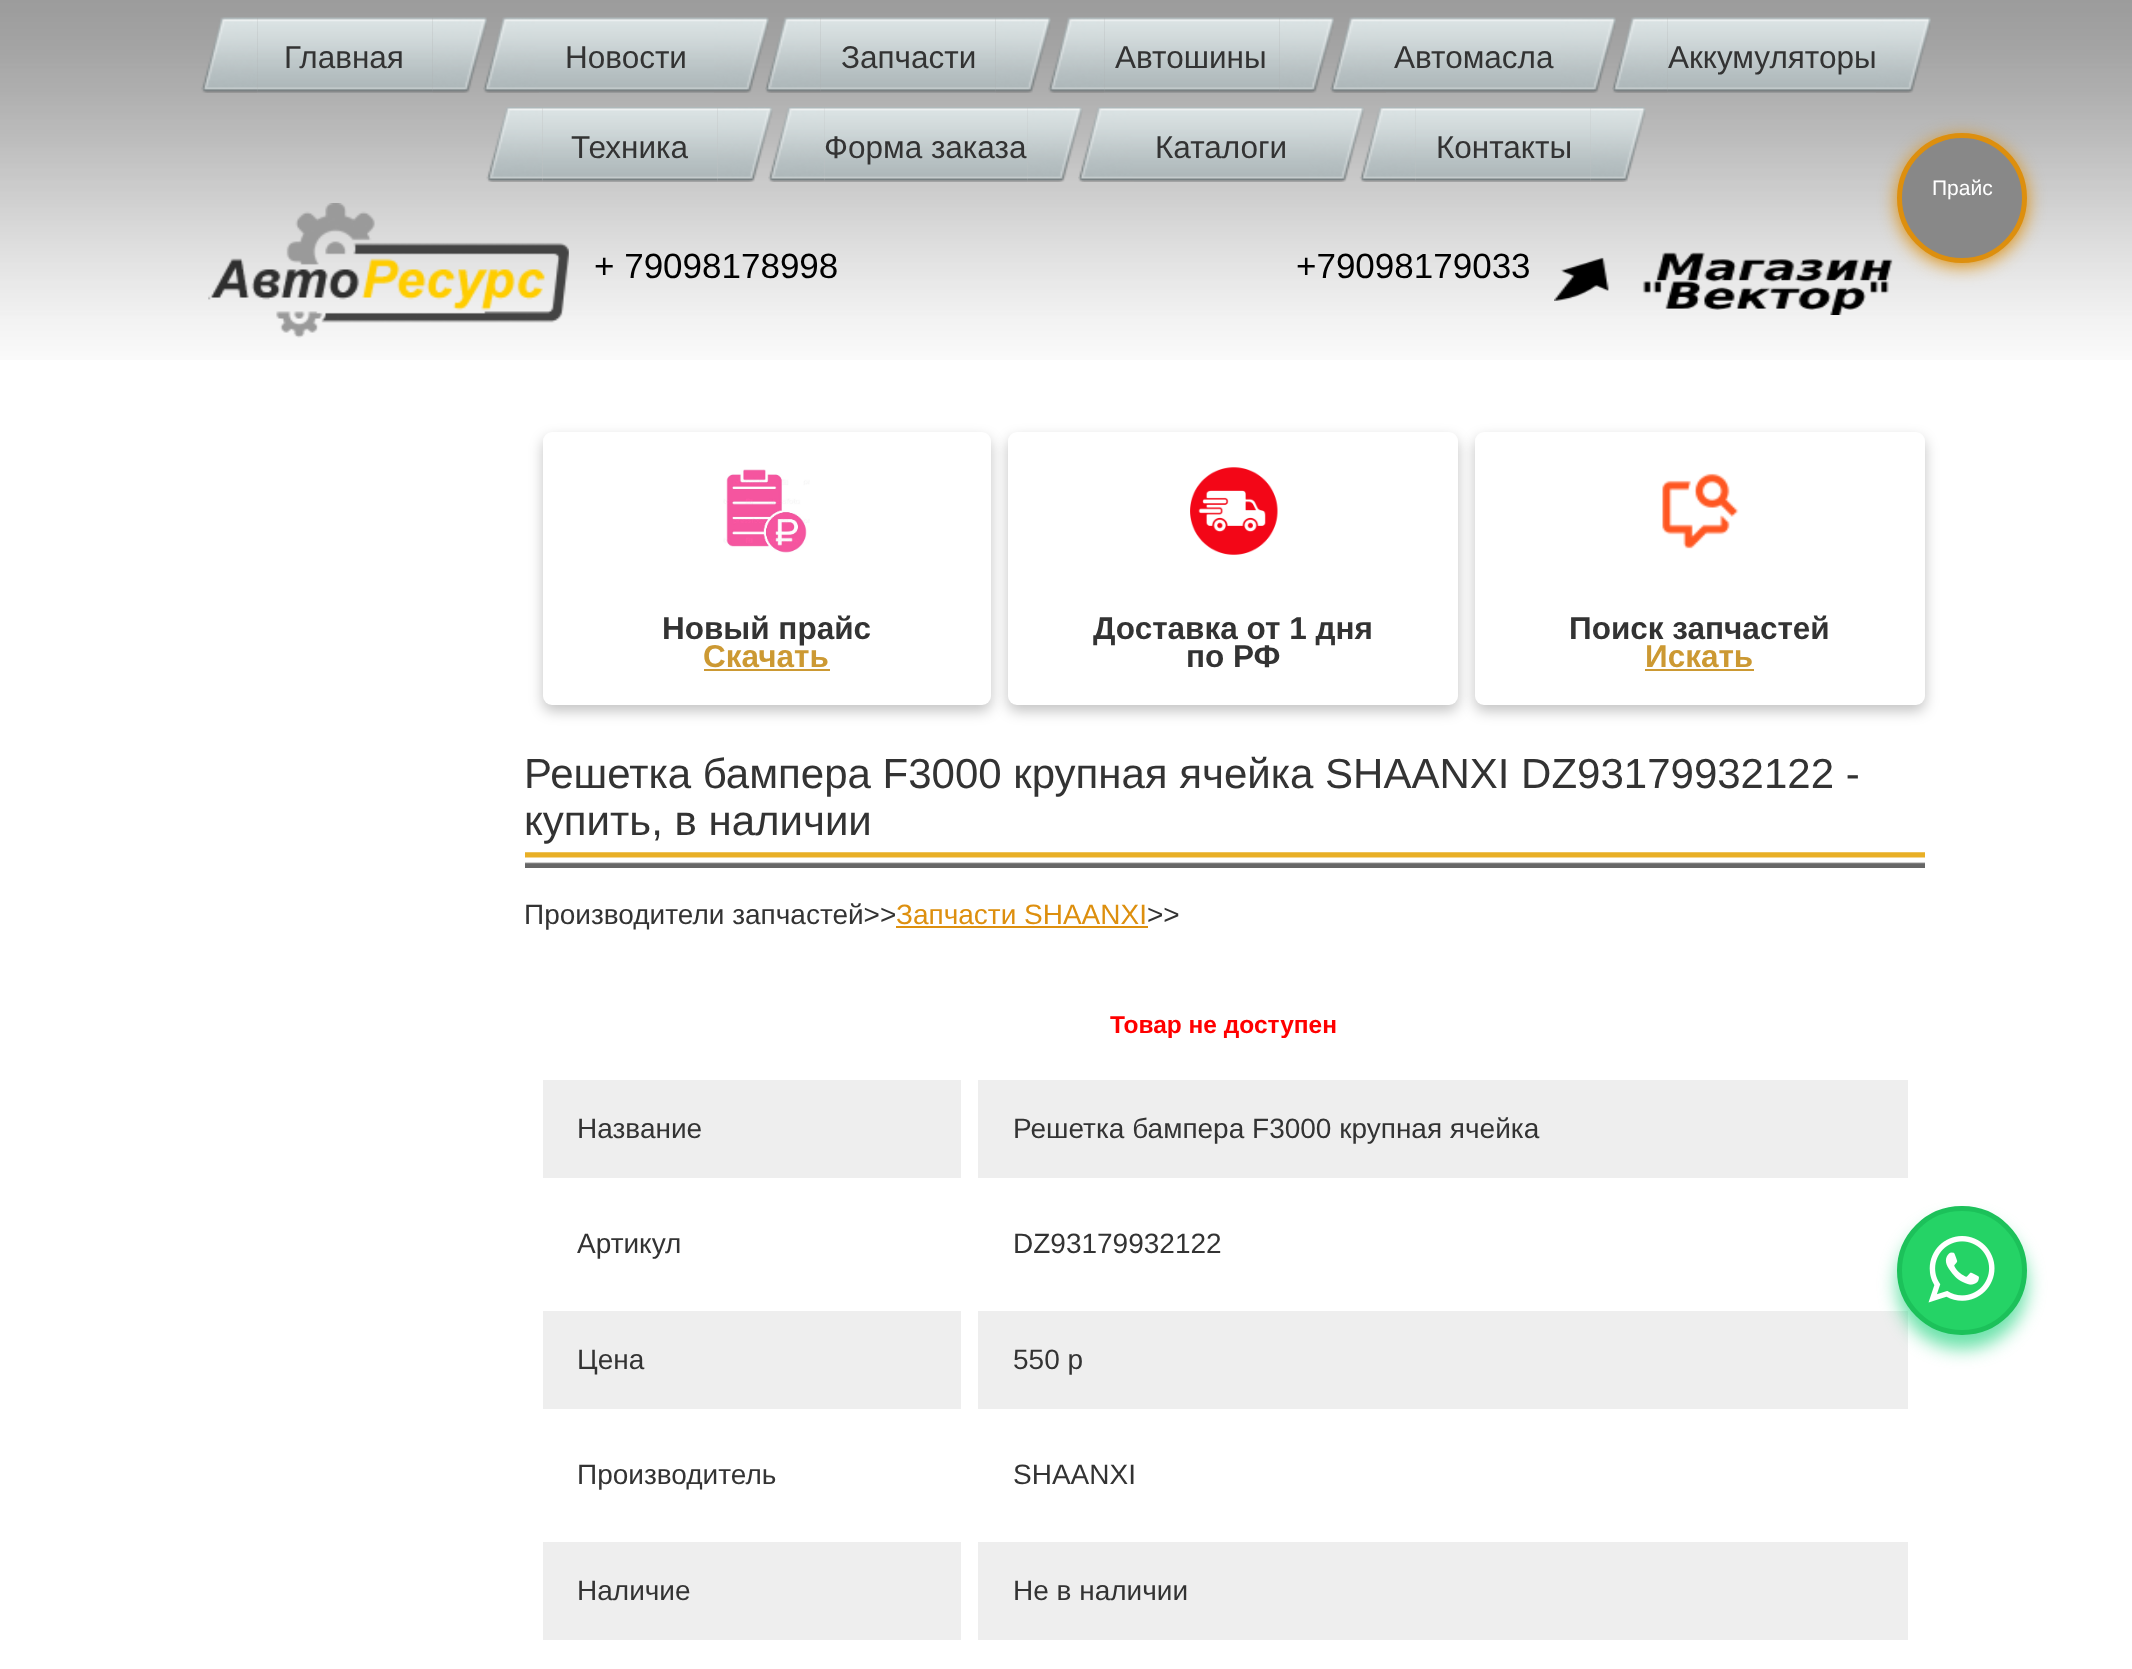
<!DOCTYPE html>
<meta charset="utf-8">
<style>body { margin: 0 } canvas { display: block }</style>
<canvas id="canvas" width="2132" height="1669"></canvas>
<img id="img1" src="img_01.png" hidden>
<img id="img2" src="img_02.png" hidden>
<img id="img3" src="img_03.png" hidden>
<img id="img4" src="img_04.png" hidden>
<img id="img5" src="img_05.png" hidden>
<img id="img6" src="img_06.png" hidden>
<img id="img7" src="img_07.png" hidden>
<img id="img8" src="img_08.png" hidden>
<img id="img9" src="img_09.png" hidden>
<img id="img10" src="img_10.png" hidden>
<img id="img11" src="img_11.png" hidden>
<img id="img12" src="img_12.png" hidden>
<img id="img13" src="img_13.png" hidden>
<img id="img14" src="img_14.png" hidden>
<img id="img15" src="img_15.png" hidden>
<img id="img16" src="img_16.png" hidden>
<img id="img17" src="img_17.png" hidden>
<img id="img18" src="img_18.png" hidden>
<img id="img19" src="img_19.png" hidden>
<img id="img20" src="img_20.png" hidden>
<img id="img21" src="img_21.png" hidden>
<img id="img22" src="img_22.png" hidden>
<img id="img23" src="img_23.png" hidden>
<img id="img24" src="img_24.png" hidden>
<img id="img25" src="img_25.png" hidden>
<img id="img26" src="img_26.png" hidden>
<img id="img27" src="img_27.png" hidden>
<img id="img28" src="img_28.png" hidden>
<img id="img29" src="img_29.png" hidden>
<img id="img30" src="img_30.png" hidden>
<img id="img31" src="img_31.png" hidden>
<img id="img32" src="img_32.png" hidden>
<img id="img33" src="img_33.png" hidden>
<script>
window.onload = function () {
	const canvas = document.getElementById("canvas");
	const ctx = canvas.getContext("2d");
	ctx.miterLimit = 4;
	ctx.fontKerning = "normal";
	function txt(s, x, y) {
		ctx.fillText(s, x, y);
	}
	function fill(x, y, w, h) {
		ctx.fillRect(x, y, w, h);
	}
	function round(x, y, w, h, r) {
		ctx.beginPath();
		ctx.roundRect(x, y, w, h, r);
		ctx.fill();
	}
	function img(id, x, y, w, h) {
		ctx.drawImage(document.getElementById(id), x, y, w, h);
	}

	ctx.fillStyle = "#FFFFFF";
	fill(0, 0, 2132, 1669);
	img("img1", 0, 0, 2132, 360);
	img("img2", 201, 17, 57, 76);
	img("img3", 432, 17, 55, 76);
	img("img4", 257, 17, 176, 76);
	img("img5", 483, 17, 56, 76);
	img("img6", 714, 17, 55, 76);
	img("img7", 539, 17, 175, 76);
	img("img8", 765, 17, 56, 76);
	img("img9", 995, 17, 56, 76);
	img("img10", 820, 17, 176, 76);
	img("img11", 1048, 17, 57, 76);
	img("img3", 1279, 17, 55, 76);
	img("img4", 1104, 17, 176, 76);
	img("img12", 1330, 17, 56, 76);
	img("img6", 1561, 17, 55, 76);
	img("img7", 1386, 17, 175, 76);
	img("img13", 1612, 17, 56, 76);
	img("img6", 1876, 17, 55, 76);
	img("img14", 1667, 17, 209, 76);
	img("img15", 486, 107, 57, 75);
	img("img16", 717, 107, 56, 75);
	img("img17", 542, 107, 176, 75);
	img("img18", 768, 107, 57, 75);
	img("img19", 1027, 107, 56, 75);
	img("img20", 824, 107, 204, 75);
	img("img21", 1078, 107, 56, 75);
	img("img22", 1309, 107, 56, 75);
	img("img23", 1134, 107, 175, 75);
	img("img24", 1359, 107, 57, 75);
	img("img25", 1590, 107, 56, 75);
	img("img26", 1415, 107, 176, 75);
	img("img27", 208, 203, 361, 135);
	img("img28", 1554, 252, 339, 63);
	ctx.fillStyle = "rgba(0, 0, 0, 0.24)";
	ctx.filter = "blur(7px)";
	ctx.beginPath();
	ctx.roundRect(543, 438, 448, 273, 9);
	ctx.fill();
	ctx.filter = "none";
	ctx.fillStyle = "#FFFFFF";
	round(543, 432, 448, 273, 9);
	img("img29", 723, 469, 87, 84);
	ctx.fillStyle = "#CC9933";
	fill(704, 669, 126, 2);
	ctx.fillStyle = "rgba(0, 0, 0, 0.24)";
	ctx.filter = "blur(7px)";
	ctx.beginPath();
	ctx.roundRect(1008, 438, 450, 273, 9);
	ctx.fill();
	ctx.filter = "none";
	ctx.fillStyle = "#FFFFFF";
	round(1008, 432, 450, 273, 9);
	img("img30", 1190, 467, 88, 88);
	ctx.fillStyle = "rgba(0, 0, 0, 0.24)";
	ctx.filter = "blur(7px)";
	ctx.beginPath();
	ctx.roundRect(1475, 438, 450, 273, 9);
	ctx.fill();
	ctx.filter = "none";
	ctx.fillStyle = "#FFFFFF";
	round(1475, 432, 450, 273, 9);
	img("img31", 1662, 473, 77, 76);
	ctx.fillStyle = "#CC9933";
	fill(1645, 669, 109, 2);
	img("img32", 525, 852, 1400, 16);
	ctx.fillStyle = "#DD8F0E";
	fill(896, 926, 252, 2);
	ctx.fillStyle = "#EEEEEE";
	fill(543, 1080, 418, 98);
	fill(978, 1080, 930, 98);
	fill(543, 1311, 418, 98);
	fill(978, 1311, 930, 98);
	fill(543, 1542, 418, 98);
	fill(978, 1542, 930, 98);
	ctx.fillStyle = "#DD8F0E";
	ctx.filter = "blur(9px)";
	ctx.beginPath();
	ctx.roundRect(1897, 137, 130, 129, 64.5);
	ctx.fill();
	ctx.filter = "none";
	ctx.fillStyle = "#888888";
	ctx.beginPath();
	ctx.arc(1962, 198, 62.5, 0, Math.PI * 2);
	ctx.fill();
	ctx.strokeStyle = "#DD8F0E";
	ctx.lineWidth = 5;
	ctx.stroke();
	ctx.fillStyle = "rgba(7, 206, 112, 0.6)";
	ctx.filter = "blur(9px)";
	ctx.beginPath();
	ctx.roundRect(1897, 1220, 130, 129, 64.5);
	ctx.fill();
	ctx.filter = "none";
	ctx.fillStyle = "#25D366";
	ctx.beginPath();
	ctx.roundRect(1899.5, 1208.5, 125, 124, 62);
	ctx.fill();
	ctx.strokeStyle = "#1CC15A";
	ctx.stroke();
	img("img33", 1928, 1236, 67, 67);
	ctx.font = "31.5px Liberation Sans";
	ctx.fillStyle = "#333333";
	txt("Главная", 284, 68);
	txt("Новости", 565, 68);
	txt("Запчасти", 841, 68);
	txt("Автошины", 1115, 68);
	txt("Автомасла", 1394, 68);
	txt("Аккумуляторы", 1668, 68);
	txt("Техника", 571, 158);
	txt("Форма заказа", 824, 158);
	txt("Каталоги", 1155, 158);
	txt("Контакты", 1436, 158);
	ctx.font = "35px Liberation Sans";
	ctx.fillStyle = "#000000";
	txt("+ 79098178998", 594, 278);
	txt("+79098179033", 1296, 278);
	ctx.font = "bold 31.5px Liberation Sans";
	ctx.fillStyle = "#333333";
	txt("Новый прайс", 662, 639);
	ctx.fillStyle = "#CC9933";
	txt("Скачать", 703, 667);
	ctx.fillStyle = "#333333";
	txt("Доставка от 1 дня", 1093, 639);
	txt("по РФ", 1186, 667);
	txt("Поиск запчастей", 1569, 639);
	ctx.fillStyle = "#CC9933";
	txt("Искать", 1645, 667);
	ctx.font = "42px Liberation Sans";
	ctx.fillStyle = "#333333";
	txt("Решетка бампера F3000 крупная ячейка SHAANXI DZ93179932122 -", 524, 788);
	txt("купить, в наличии", 524, 835);
	ctx.font = "28px Liberation Sans";
	txt("Производители запчастей>>", 524, 924);
	ctx.fillStyle = "#DD8F0E";
	txt("Запчасти SHAANXI", 896, 924);
	ctx.fillStyle = "#333333";
	txt(">>", 1147, 924);
	ctx.font = "bold 24.5px Liberation Sans";
	ctx.fillStyle = "#FF0000";
	txt("Товар не доступен", 1110, 1033);
	ctx.font = "28px Liberation Sans";
	ctx.fillStyle = "#333333";
	txt("Название", 577, 1138);
	txt("Решетка бампера F3000 крупная ячейка", 1013, 1138);
	txt("Артикул", 577, 1253);
	txt("DZ93179932122", 1013, 1253);
	txt("Цена", 577, 1369);
	txt("550 р", 1013, 1369);
	txt("Производитель", 577, 1484);
	txt("SHAANXI", 1013, 1484);
	txt("Наличие", 577, 1600);
	txt("Не в наличии", 1013, 1600);
	ctx.font = "21px Liberation Sans";
	ctx.fillStyle = "#FFFFFF";
	txt("Прайс", 1932, 195);
};
</script>
